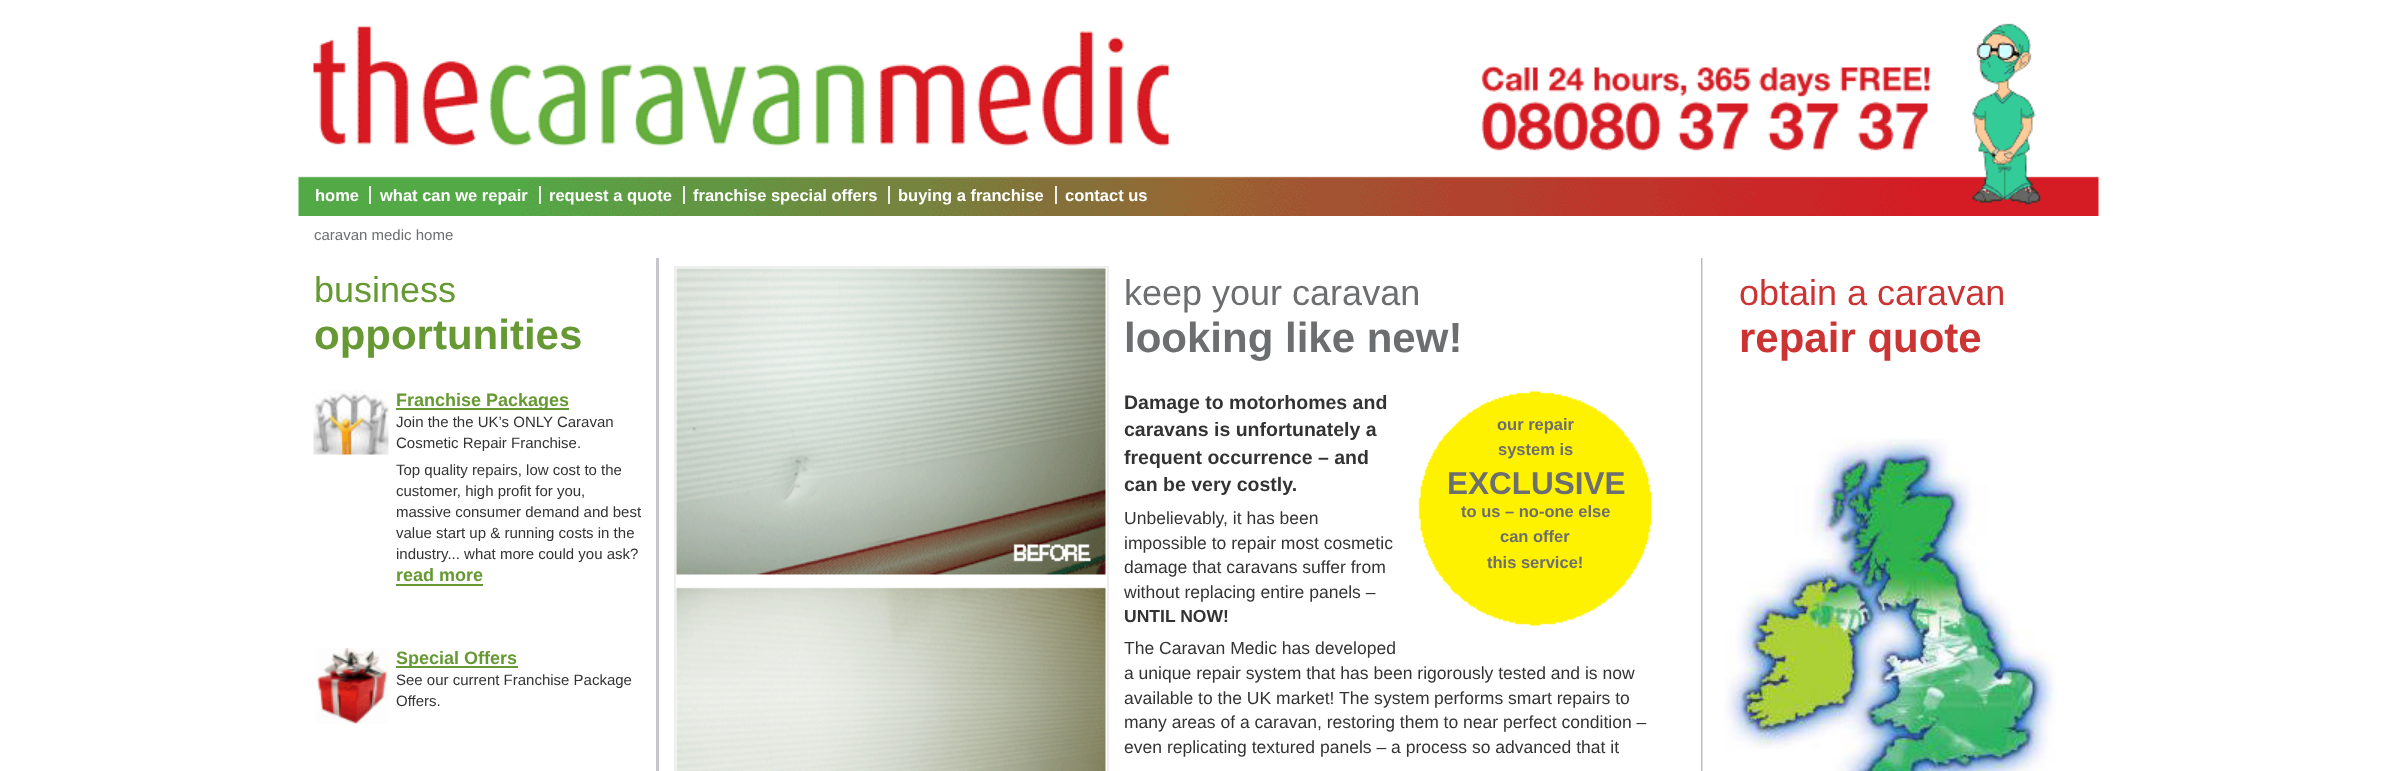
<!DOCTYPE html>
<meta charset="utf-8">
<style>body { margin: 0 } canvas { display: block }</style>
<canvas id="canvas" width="2396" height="771"></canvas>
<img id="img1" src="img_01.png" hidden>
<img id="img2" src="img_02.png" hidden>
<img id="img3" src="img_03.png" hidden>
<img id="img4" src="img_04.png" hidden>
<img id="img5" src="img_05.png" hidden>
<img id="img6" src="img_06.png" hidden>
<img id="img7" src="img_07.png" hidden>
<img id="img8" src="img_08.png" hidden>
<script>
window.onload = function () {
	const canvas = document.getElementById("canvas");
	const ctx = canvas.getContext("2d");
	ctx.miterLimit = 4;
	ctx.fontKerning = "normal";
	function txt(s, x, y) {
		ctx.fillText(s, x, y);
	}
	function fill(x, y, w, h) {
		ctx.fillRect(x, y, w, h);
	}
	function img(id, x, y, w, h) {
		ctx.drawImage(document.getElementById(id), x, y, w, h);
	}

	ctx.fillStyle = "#FFFFFF";
	fill(0, 0, 2396, 771);
	img("img1", 298, 23, 1801, 193);
	img("img2", 313, 25, 856, 121);
	ctx.fillStyle = "#EEEEEE";
	fill(369, 186, 2, 18);
	fill(539, 186, 2, 18);
	fill(683, 186, 2, 18);
	fill(888, 186, 2, 18);
	fill(1055, 186, 2, 18);
	ctx.fillStyle = "#C5C7CA";
	fill(656, 258, 3, 513);
	img("img3", 313, 390, 76, 65);
	ctx.fillStyle = "#669933";
	fill(396, 408, 173, 2);
	fill(396, 584, 87, 2);
	img("img4", 316, 648, 73, 76);
	fill(396, 666, 122, 2);
	img("img5", 1701, 258, 2, 513);
	ctx.strokeStyle = "#EEEEEE";
	ctx.lineWidth = 2;
	ctx.strokeRect(675, 267, 433, 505);
	img("img6", 676, 268, 430, 503);
	img("img7", 1418, 391, 234, 235);
	img("img8", 1724, 438, 333, 333);
	ctx.font = "bold 16.5px Liberation Sans";
	ctx.fillStyle = "#FFFFFF";
	txt("home", 315, 201);
	txt("what can we repair", 380, 201);
	txt("request a quote", 549, 201);
	txt("franchise special offers", 693, 201);
	txt("buying a franchise", 898, 201);
	txt("contact us", 1065, 201);
	ctx.font = "15px Liberation Sans";
	ctx.fillStyle = "#6C6E70";
	txt("caravan medic home", 314, 240);
	ctx.font = "36px Liberation Sans";
	ctx.fillStyle = "#669933";
	txt("business", 314, 302);
	ctx.font = "bold 42px Liberation Sans";
	txt("opportunities", 314, 349);
	ctx.font = "bold 18px Liberation Sans";
	txt("Franchise Packages", 396, 406);
	ctx.font = "15px Liberation Sans";
	ctx.fillStyle = "#333333";
	txt("Join the the UK’s ONLY Caravan", 396, 427);
	txt("Cosmetic Repair Franchise.", 396, 448);
	txt("Top quality repairs, low cost to the", 396, 475);
	txt("customer, high profit for you,", 396, 496);
	txt("massive consumer demand and best", 396, 517);
	txt("value start up & running costs in the", 396, 538);
	txt("industry... what more could you ask?", 396, 559);
	ctx.font = "bold 18px Liberation Sans";
	ctx.fillStyle = "#669933";
	txt("read more", 396, 581);
	txt("Special Offers", 396, 664);
	ctx.font = "15px Liberation Sans";
	ctx.fillStyle = "#333333";
	txt("See our current Franchise Package", 396, 685);
	txt("Offers.", 396, 706);
	ctx.font = "36px Liberation Sans";
	ctx.fillStyle = "#6C6E70";
	txt("keep your caravan", 1124, 305);
	ctx.font = "bold 42px Liberation Sans";
	txt("looking like new!", 1124, 352);
	ctx.font = "bold 19.5px Liberation Sans";
	ctx.fillStyle = "#333333";
	txt("Damage to motorhomes and", 1124, 409);
	txt("caravans is unfortunately a", 1124, 436);
	txt("frequent occurrence – and", 1124, 464);
	txt("can be very costly.", 1124, 491);
	ctx.font = "bold 16.5px Liberation Sans";
	ctx.fillStyle = "#6C6E70";
	txt("our repair", 1497, 430);
	txt("system is", 1498, 455);
	ctx.font = "bold 31.5px Liberation Sans";
	txt("EXCLUSIVE", 1447, 494);
	ctx.font = "bold 16.5px Liberation Sans";
	txt("to us – no-one else", 1461, 517);
	txt("can offer", 1500, 542);
	txt("this service!", 1487, 568);
	ctx.font = "17.55px Liberation Sans";
	ctx.fillStyle = "#333333";
	txt("Unbelievably, it has been", 1124, 524);
	txt("impossible to repair most cosmetic", 1124, 549);
	txt("damage that caravans suffer from", 1124, 573);
	txt("without replacing entire panels –", 1124, 598);
	ctx.font = "bold 17.55px Liberation Sans";
	txt("UNTIL NOW!", 1124, 622);
	ctx.font = "17.55px Liberation Sans";
	txt("The Caravan Medic has developed", 1124, 654);
	txt("a unique repair system that has been rigorously tested and is now", 1124, 679);
	txt("available to the UK market! The system", 1124, 704);
	txt("performs smart repairs to", 1434, 704);
	txt("many areas of a caravan, restoring them to near perfect condition –", 1124, 728);
	txt("even replicating textured panels – a process so advanced that it", 1124, 753);
	ctx.font = "36px Liberation Sans";
	ctx.fillStyle = "#CC3333";
	txt("obtain a caravan", 1739, 305);
	ctx.font = "bold 42px Liberation Sans";
	txt("repair quote", 1739, 352);
};
</script>
